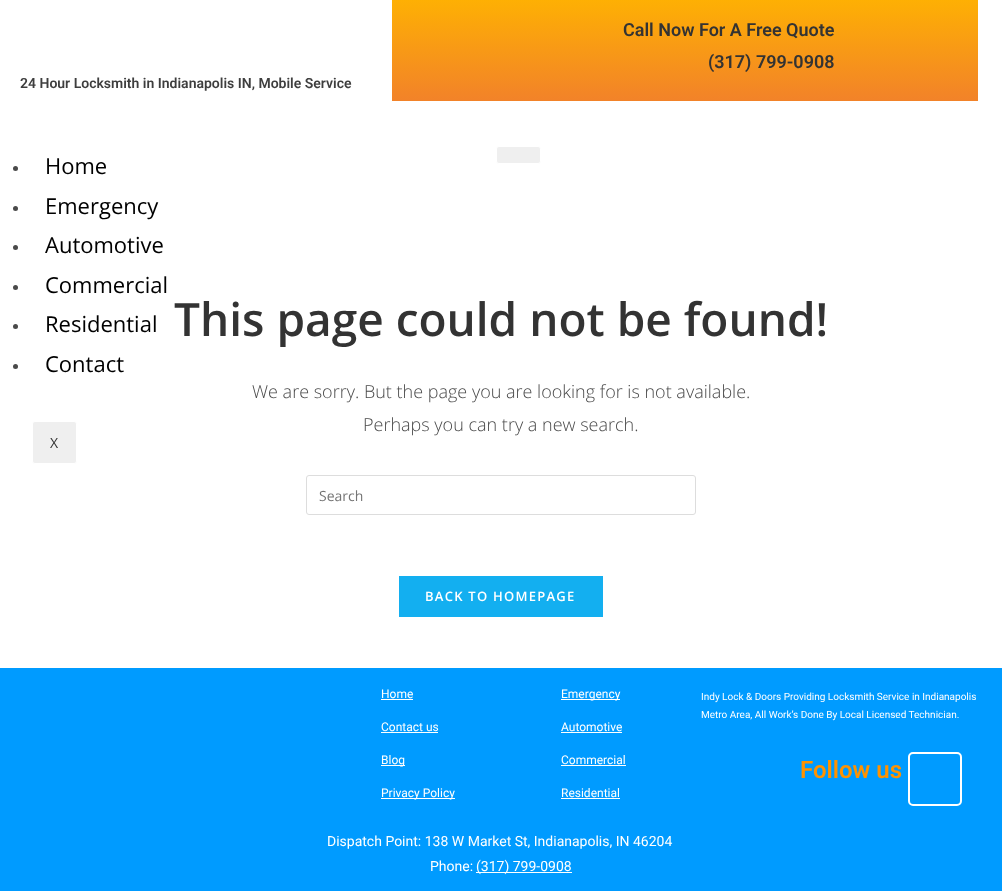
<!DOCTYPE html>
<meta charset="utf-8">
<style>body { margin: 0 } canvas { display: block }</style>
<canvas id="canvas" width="1002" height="891"></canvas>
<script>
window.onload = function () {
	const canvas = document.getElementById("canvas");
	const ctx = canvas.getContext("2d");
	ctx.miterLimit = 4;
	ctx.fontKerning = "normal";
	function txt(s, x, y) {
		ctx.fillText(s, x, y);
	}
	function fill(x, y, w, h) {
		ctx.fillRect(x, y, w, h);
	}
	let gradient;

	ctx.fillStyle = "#FFFFFF";
	fill(0, 0, 1002, 891);
	gradient = ctx.createLinearGradient(685, -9, 685, 101);
	gradient.addColorStop(0, "#FFB400");
	gradient.addColorStop(1, "#F28229");
	ctx.fillStyle = gradient;
	fill(392, 0, 586, 101);
	ctx.fillStyle = "#EFEFEF";
	ctx.beginPath();
	ctx.roundRect(496.5, 146.5, 44, 17, 2.5);
	ctx.fill();
	ctx.strokeStyle = "#FFFFFF";
	ctx.stroke();
	ctx.fillStyle = "#4A4A4A";
	ctx.beginPath();
	ctx.arc(15.5, 168.5, 2.5, 0, Math.PI * 2);
	ctx.fill();
	ctx.beginPath();
	ctx.arc(15.5, 208.5, 2.5, 0, Math.PI * 2);
	ctx.fill();
	ctx.beginPath();
	ctx.arc(15.5, 247.5, 2.5, 0, Math.PI * 2);
	ctx.fill();
	ctx.beginPath();
	ctx.arc(15.5, 287.5, 2.5, 0, Math.PI * 2);
	ctx.fill();
	ctx.beginPath();
	ctx.arc(15.5, 326.5, 2.5, 0, Math.PI * 2);
	ctx.fill();
	ctx.beginPath();
	ctx.arc(15.5, 366.5, 2.5, 0, Math.PI * 2);
	ctx.fill();
	ctx.fillStyle = "#EFEFEF";
	ctx.beginPath();
	ctx.roundRect(32.5, 421.5, 44, 42, 2.5);
	ctx.fill();
	ctx.stroke();
	ctx.beginPath();
	ctx.roundRect(306.5, 475.5, 389, 39, 2.5);
	ctx.strokeStyle = "#DDDDDD";
	ctx.stroke();
	ctx.fillStyle = "#13AFF0";
	fill(399, 576, 204, 41);
	ctx.fillStyle = "#009BFF";
	fill(0, 668, 1002, 223);
	ctx.fillStyle = "#FFFFFF";
	fill(381, 699, 32, 1);
	fill(381, 732, 57, 1);
	fill(381, 765, 24, 1);
	fill(381, 798, 74, 1);
	fill(561, 699, 59, 1);
	fill(561, 732, 61, 1);
	fill(561, 765, 65, 1);
	fill(561, 798, 59, 1);
	ctx.beginPath();
	ctx.roundRect(909, 753, 52, 52, 4);
	ctx.strokeStyle = "#FFFFFF";
	ctx.lineWidth = 2;
	ctx.stroke();
	fill(476, 872, 96, 1);
	ctx.font = "600 18px Roboto";
	ctx.fillStyle = "#333333";
	txt("Call Now For A Free Quote", 623, 36);
	txt("(317) 799-0908", 708, 68);
	ctx.font = "600 14px Roboto";
	ctx.fillStyle = "#3E3E3E";
	txt("24 Hour Locksmith in Indianapolis IN, Mobile Service", 20, 88);
	ctx.font = "22px Open Sans";
	ctx.fillStyle = "#000000";
	txt("Home", 45, 174);
	txt("Emergency", 45, 214);
	txt("Automotive", 45, 253);
	txt("Commercial", 45, 293);
	txt("Residential", 45, 332);
	txt("Contact", 45, 372);
	ctx.font = "14px Open Sans";
	ctx.fillStyle = "#333333";
	txt("X", 50, 448);
	ctx.font = "600 46px Open Sans";
	txt("This page could not be found!", 174, 336);
	ctx.font = "300 18px Open Sans";
	ctx.fillStyle = "#4A4A4A";
	txt("We are sorry. But the page you are looking for is not available.", 252, 398);
	txt("Perhaps you can try a new search.", 363, 431);
	ctx.font = "14px Open Sans";
	ctx.fillStyle = "#757575";
	txt("Search", 319, 501);
	ctx.letterSpacing = "1.25px";
	ctx.font = "600 13px Open Sans";
	ctx.fillStyle = "#FFFFFF";
	txt("BACK TO HOMEPAGE", 425, 601);
	ctx.letterSpacing = "0px";
	ctx.font = "12px Roboto";
	txt("Home", 381, 698);
	txt("Contact us", 381, 731);
	txt("Blog", 381, 764);
	txt("Privacy Policy", 381, 797);
	txt("Emergency", 561, 698);
	txt("Automotive", 561, 731);
	txt("Commercial", 561, 764);
	txt("Residential", 561, 797);
	ctx.font = "10px Roboto";
	txt("Indy Lock & Doors Providing Locksmith Service in Indianapolis", 701, 700);
	txt("Metro Area, All Work’s Done By Local Licensed Technician.", 701, 718);
	ctx.font = "600 24px Roboto";
	ctx.fillStyle = "#FF9200";
	txt("Follow us", 800, 778);
	ctx.font = "14px Roboto";
	ctx.fillStyle = "#FFFFFF";
	txt("Dispatch Point: 138 W Market St, Indianapolis, IN 46204", 327, 846);
	txt("Phone:", 430, 871);
	txt("(317) 799-0908", 476, 871);
};
</script>
